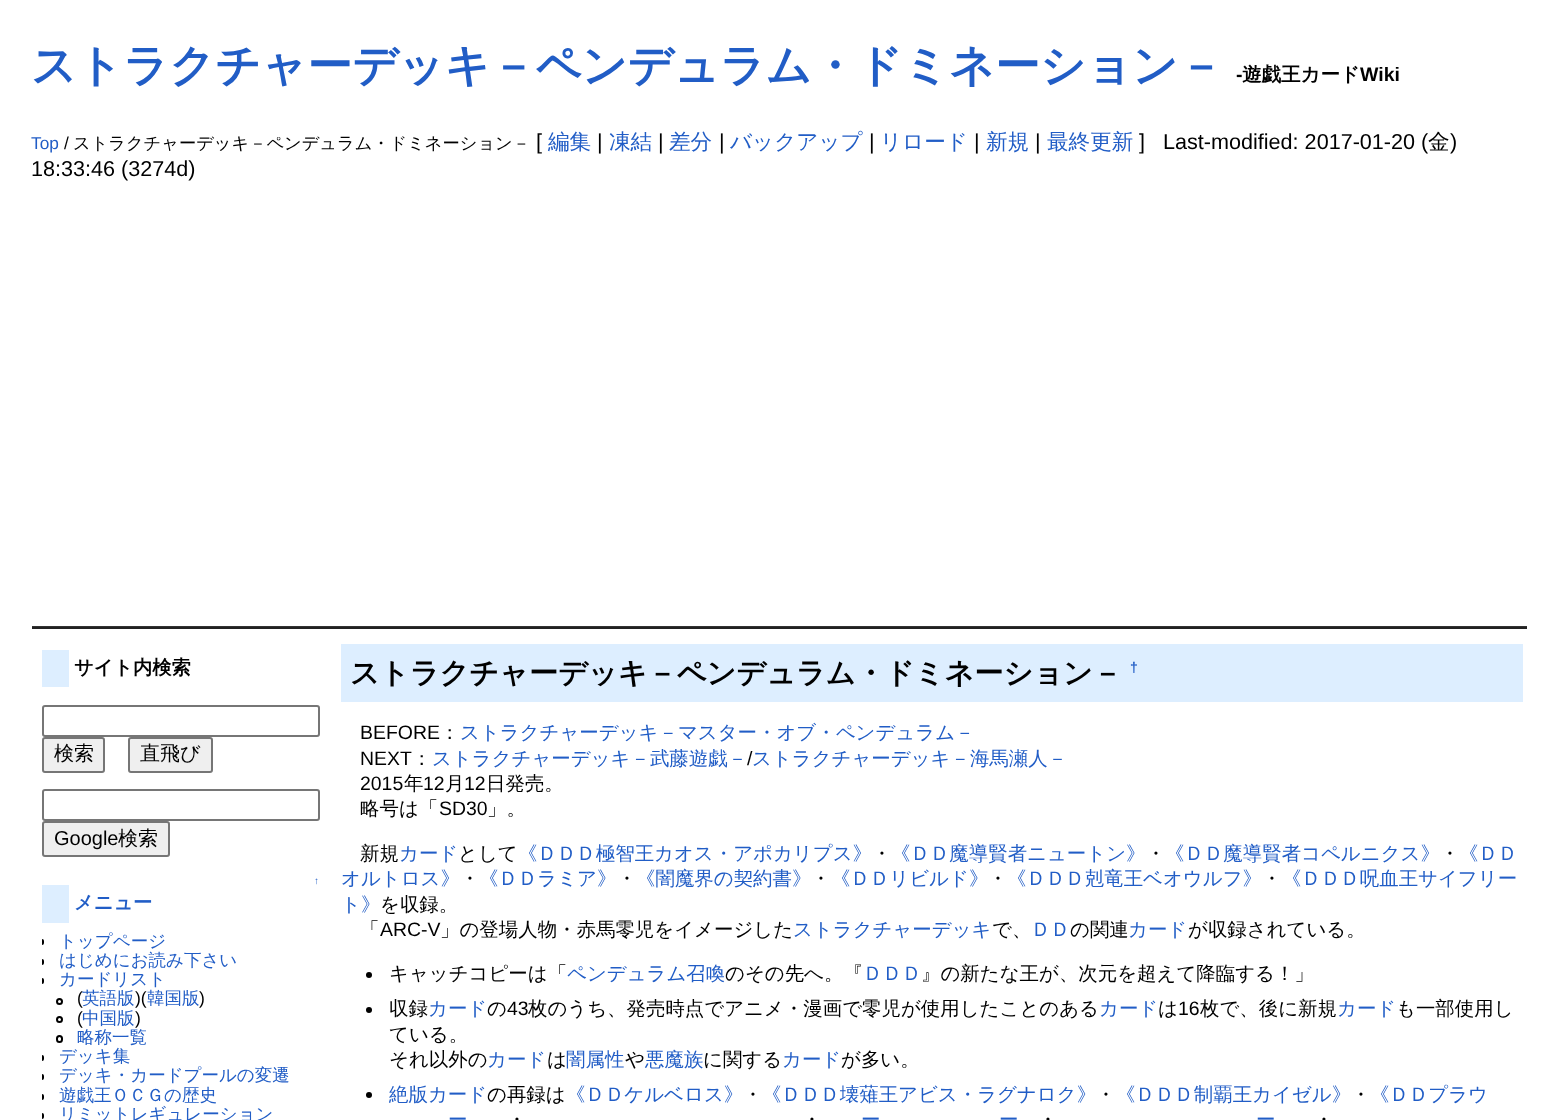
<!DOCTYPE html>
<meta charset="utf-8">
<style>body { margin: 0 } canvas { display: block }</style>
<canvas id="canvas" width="1558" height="1120"></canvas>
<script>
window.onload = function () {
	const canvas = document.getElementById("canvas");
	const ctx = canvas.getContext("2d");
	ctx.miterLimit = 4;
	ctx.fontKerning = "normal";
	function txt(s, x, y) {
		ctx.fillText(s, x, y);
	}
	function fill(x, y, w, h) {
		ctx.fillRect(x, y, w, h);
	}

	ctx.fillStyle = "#FFFFFF";
	fill(0, 0, 1558, 1120);
	ctx.fillStyle = "#333333";
	fill(32, 626, 1495, 1);
	ctx.fillStyle = "#222222";
	fill(32, 627, 1495, 2);
	ctx.fillStyle = "#DDEEFF";
	fill(42, 650, 27, 37);
	ctx.beginPath();
	ctx.roundRect(43, 706, 276, 30, 2);
	ctx.strokeStyle = "#767676";
	ctx.lineWidth = 2;
	ctx.stroke();
	ctx.fillStyle = "#EFEFEF";
	ctx.beginPath();
	ctx.roundRect(43, 738, 61, 34, 2);
	ctx.fill();
	ctx.stroke();
	ctx.beginPath();
	ctx.roundRect(129, 738, 83, 34, 2);
	ctx.fill();
	ctx.stroke();
	ctx.beginPath();
	ctx.roundRect(43, 790, 276, 30, 2);
	ctx.stroke();
	ctx.beginPath();
	ctx.roundRect(43, 822, 126, 34, 2);
	ctx.fill();
	ctx.stroke();
	ctx.fillStyle = "#DDEEFF";
	fill(42, 885, 27, 38);
	ctx.fillStyle = "#000000";
	ctx.beginPath();
	ctx.roundRect(42, 939, 2, 6, [0, 3, 3, 0]);
	ctx.fill();
	ctx.beginPath();
	ctx.roundRect(42, 959, 2, 6, [0, 3, 3, 0]);
	ctx.fill();
	ctx.beginPath();
	ctx.roundRect(42, 978, 2, 6, [0, 3, 3, 0]);
	ctx.fill();
	ctx.beginPath();
	ctx.arc(59.5, 1001.5, 2.5, 0, Math.PI * 2);
	ctx.strokeStyle = "#000000";
	ctx.stroke();
	ctx.beginPath();
	ctx.arc(59.5, 1019.5, 2.5, 0, Math.PI * 2);
	ctx.stroke();
	ctx.beginPath();
	ctx.roundRect(57, 1036, 5, 6, 2.5);
	ctx.stroke();
	ctx.beginPath();
	ctx.roundRect(42, 1055, 2, 6, [0, 3, 3, 0]);
	ctx.fill();
	ctx.beginPath();
	ctx.roundRect(42, 1074, 2, 6, [0, 3, 3, 0]);
	ctx.fill();
	ctx.beginPath();
	ctx.roundRect(42, 1094, 2, 6, [0, 3, 3, 0]);
	ctx.fill();
	ctx.beginPath();
	ctx.roundRect(42, 1113, 2, 6, [0, 3, 3, 0]);
	ctx.fill();
	ctx.fillStyle = "#DDEEFF";
	fill(341, 644, 1182, 58);
	ctx.fillStyle = "#000000";
	ctx.beginPath();
	ctx.arc(369, 975, 3, 0, Math.PI * 2);
	ctx.fill();
	ctx.beginPath();
	ctx.arc(369, 1010, 3, 0, Math.PI * 2);
	ctx.fill();
	ctx.beginPath();
	ctx.arc(369, 1095, 3, 0, Math.PI * 2);
	ctx.fill();
	ctx.font = "bold 45px WenQuanYi Zen Hei";
	ctx.fillStyle = "#215DC6";
	txt("ストラクチャーデッキ－ペンデュラム・ドミネーション－", 31, 81);
	ctx.font = "bold 19.5px Liberation Sans";
	ctx.fillStyle = "#000000";
	txt("-", 1236, 81);
	ctx.font = "bold 19.5px WenQuanYi Zen Hei";
	txt("遊戯王カード", 1242, 81);
	ctx.font = "bold 19.5px Liberation Sans";
	txt("Wiki", 1360, 81);
	ctx.font = "17.25px Liberation Sans";
	ctx.fillStyle = "#215DC6";
	txt("Top", 31, 149);
	ctx.fillStyle = "#000000";
	txt("/", 64, 149);
	ctx.font = "500 17.25px WenQuanYi Zen Hei";
	txt("ストラクチャーデッキ－ペンデュラム・ドミネーション－", 73, 149);
	ctx.font = "21.6px Liberation Sans";
	txt("[", 536, 149);
	ctx.font = "500 21.6px WenQuanYi Zen Hei";
	ctx.fillStyle = "#215DC6";
	txt("編集", 548, 149);
	ctx.font = "21.6px Liberation Sans";
	ctx.fillStyle = "#000000";
	txt("|", 597, 149);
	ctx.font = "500 21.6px WenQuanYi Zen Hei";
	ctx.fillStyle = "#215DC6";
	txt("凍結", 609, 149);
	ctx.font = "21.6px Liberation Sans";
	ctx.fillStyle = "#000000";
	txt("|", 658, 149);
	ctx.font = "500 21.6px WenQuanYi Zen Hei";
	ctx.fillStyle = "#215DC6";
	txt("差分", 669, 149);
	ctx.font = "21.6px Liberation Sans";
	ctx.fillStyle = "#000000";
	txt("|", 719, 149);
	ctx.font = "500 21.6px WenQuanYi Zen Hei";
	ctx.fillStyle = "#215DC6";
	txt("バックアップ", 730, 149);
	ctx.font = "21.6px Liberation Sans";
	ctx.fillStyle = "#000000";
	txt("|", 869, 149);
	ctx.font = "500 21.6px WenQuanYi Zen Hei";
	ctx.fillStyle = "#215DC6";
	txt("リロード", 880, 149);
	ctx.font = "21.6px Liberation Sans";
	ctx.fillStyle = "#000000";
	txt("|", 974, 149);
	ctx.font = "500 21.6px WenQuanYi Zen Hei";
	ctx.fillStyle = "#215DC6";
	txt("新規", 986, 149);
	ctx.font = "21.6px Liberation Sans";
	ctx.fillStyle = "#000000";
	txt("|", 1035, 149);
	ctx.font = "500 21.6px WenQuanYi Zen Hei";
	ctx.fillStyle = "#215DC6";
	txt("最終更新", 1047, 149);
	ctx.font = "21.6px Liberation Sans";
	ctx.fillStyle = "#000000";
	txt("]   Last-modified: 2017-01-20 (", 1139, 149);
	ctx.font = "500 21.6px WenQuanYi Zen Hei";
	txt("金", 1428, 149);
	ctx.font = "21.6px Liberation Sans";
	txt(")", 1450, 149);
	txt("18:33:46 (3274d)", 31, 176);
	ctx.font = "bold 19.25px WenQuanYi Zen Hei";
	txt("サイト内検索", 74, 674);
	ctx.font = "500 20px WenQuanYi Zen Hei";
	txt("検索", 54, 760);
	txt("直飛び", 140, 760);
	ctx.font = "20px Liberation Sans";
	txt("Google", 54, 845);
	ctx.font = "500 20px WenQuanYi Zen Hei";
	txt("検索", 118, 845);
	ctx.font = "10px Liberation Sans";
	ctx.fillStyle = "#215DC6";
	txt("↑", 314, 884);
	ctx.font = "bold 19.25px WenQuanYi Zen Hei";
	txt("メニュー", 74, 909);
	ctx.font = "500 17.5px WenQuanYi Zen Hei";
	txt("トップページ", 59, 947);
	txt("はじめにお読み下さい", 59, 966);
	txt("カードリスト", 59, 985);
	ctx.font = "17.5px Liberation Sans";
	ctx.fillStyle = "#000000";
	txt("(", 77, 1004);
	ctx.font = "500 17.5px WenQuanYi Zen Hei";
	ctx.fillStyle = "#215DC6";
	txt("英語版", 82, 1004);
	ctx.font = "17.5px Liberation Sans";
	ctx.fillStyle = "#000000";
	txt(")(", 135, 1004);
	ctx.font = "500 17.5px WenQuanYi Zen Hei";
	ctx.fillStyle = "#215DC6";
	txt("韓国版", 147, 1004);
	ctx.font = "17.5px Liberation Sans";
	ctx.fillStyle = "#000000";
	txt(")", 199, 1004);
	txt("(", 77, 1024);
	ctx.font = "500 17.5px WenQuanYi Zen Hei";
	ctx.fillStyle = "#215DC6";
	txt("中国版", 82, 1024);
	ctx.font = "17.5px Liberation Sans";
	ctx.fillStyle = "#000000";
	txt(")", 135, 1024);
	ctx.font = "500 17.5px WenQuanYi Zen Hei";
	ctx.fillStyle = "#215DC6";
	txt("略称一覧", 77, 1043);
	txt("デッキ集", 59, 1062);
	txt("デッキ・カードプールの変遷", 59, 1081);
	txt("遊戯王ＯＣＧの歴史", 59, 1101);
	txt("リミットレギュレーション", 59, 1120);
	ctx.font = "bold 29.15px WenQuanYi Zen Hei";
	ctx.fillStyle = "#000000";
	txt("ストラクチャーデッキ－ペンデュラム・ドミネーション－", 350, 683);
	ctx.font = "bold 14px Liberation Sans";
	ctx.fillStyle = "#215DC6";
	txt("†", 1130, 672);
	ctx.font = "19.45px Liberation Sans";
	ctx.fillStyle = "#000000";
	txt("BEFORE", 360, 739);
	ctx.font = "500 19.45px WenQuanYi Zen Hei";
	txt("：", 440, 739);
	ctx.fillStyle = "#215DC6";
	txt("ストラクチャーデッキ－マスター・オブ・ペンデュラム－", 460, 739);
	ctx.font = "19.45px Liberation Sans";
	ctx.fillStyle = "#000000";
	txt("NEXT", 360, 765);
	ctx.font = "500 19.45px WenQuanYi Zen Hei";
	txt("：", 412, 765);
	ctx.fillStyle = "#215DC6";
	txt("ストラクチャーデッキ－武藤遊戯－", 432, 765);
	ctx.font = "19.45px Liberation Sans";
	ctx.fillStyle = "#000000";
	txt("/", 747, 765);
	ctx.font = "500 19.45px WenQuanYi Zen Hei";
	ctx.fillStyle = "#215DC6";
	txt("ストラクチャーデッキ－海馬瀬人－", 752, 765);
	ctx.font = "19.45px Liberation Sans";
	ctx.fillStyle = "#000000";
	txt("2015", 360, 790);
	ctx.font = "500 19.45px WenQuanYi Zen Hei";
	txt("年", 404, 790);
	ctx.font = "19.45px Liberation Sans";
	txt("12", 423, 790);
	ctx.font = "500 19.45px WenQuanYi Zen Hei";
	txt("月", 445, 790);
	ctx.font = "19.45px Liberation Sans";
	txt("12", 464, 790);
	ctx.font = "500 19.45px WenQuanYi Zen Hei";
	txt("日発売。", 486, 790);
	txt("略号は「", 360, 815);
	ctx.font = "19.45px Liberation Sans";
	txt("SD30", 439, 815);
	ctx.font = "500 19.45px WenQuanYi Zen Hei";
	txt("」。", 487, 815);
	txt("新規", 360, 860);
	ctx.fillStyle = "#215DC6";
	txt("カード", 399, 860);
	ctx.fillStyle = "#000000";
	txt("として", 458, 860);
	ctx.fillStyle = "#215DC6";
	txt("《ＤＤＤ極智王カオス・アポカリプス》", 518, 860);
	ctx.fillStyle = "#000000";
	txt("・", 872, 860);
	ctx.fillStyle = "#215DC6";
	txt("《ＤＤ魔導賢者ニュートン》", 891, 860);
	ctx.fillStyle = "#000000";
	txt("・", 1146, 860);
	ctx.fillStyle = "#215DC6";
	txt("《ＤＤ魔導賢者コペルニクス》", 1165, 860);
	ctx.fillStyle = "#000000";
	txt("・", 1440, 860);
	ctx.fillStyle = "#215DC6";
	txt("《ＤＤ", 1459, 860);
	txt("オルトロス》", 341, 885);
	ctx.fillStyle = "#000000";
	txt("・", 460, 885);
	ctx.fillStyle = "#215DC6";
	txt("《ＤＤラミア》", 479, 885);
	ctx.fillStyle = "#000000";
	txt("・", 617, 885);
	ctx.fillStyle = "#215DC6";
	txt("《闇魔界の契約書》", 636, 885);
	ctx.fillStyle = "#000000";
	txt("・", 811, 885);
	ctx.fillStyle = "#215DC6";
	txt("《ＤＤリビルド》", 831, 885);
	ctx.fillStyle = "#000000";
	txt("・", 988, 885);
	ctx.fillStyle = "#215DC6";
	txt("《ＤＤＤ剋竜王ベオウルフ》", 1007, 885);
	ctx.fillStyle = "#000000";
	txt("・", 1262, 885);
	ctx.fillStyle = "#215DC6";
	txt("《ＤＤＤ呪血王サイフリー", 1282, 885);
	txt("ト》", 341, 911);
	ctx.fillStyle = "#000000";
	txt("を収録。", 380, 911);
	txt("「", 360, 936);
	ctx.font = "19.45px Liberation Sans";
	txt("ARC-V", 380, 936);
	ctx.font = "500 19.45px WenQuanYi Zen Hei";
	txt("」の登場人物・赤馬零児をイメージした", 440, 936);
	ctx.fillStyle = "#215DC6";
	txt("ストラクチャーデッキ", 793, 936);
	ctx.fillStyle = "#000000";
	txt("で、", 992, 936);
	ctx.fillStyle = "#215DC6";
	txt("ＤＤ", 1031, 936);
	ctx.fillStyle = "#000000";
	txt("の関連", 1070, 936);
	ctx.fillStyle = "#215DC6";
	txt("カード", 1128, 936);
	ctx.fillStyle = "#000000";
	txt("が収録されている。", 1188, 936);
	txt("キャッチコピーは「", 389, 980);
	ctx.fillStyle = "#215DC6";
	txt("ペンデュラム召喚", 567, 980);
	ctx.fillStyle = "#000000";
	txt("のその先へ。『", 725, 980);
	ctx.fillStyle = "#215DC6";
	txt("ＤＤＤ", 863, 980);
	ctx.fillStyle = "#000000";
	txt("』の新たな王が、次元を超えて降臨する！」", 921, 980);
	txt("収録", 389, 1015);
	ctx.fillStyle = "#215DC6";
	txt("カード", 428, 1015);
	ctx.fillStyle = "#000000";
	txt("の", 487, 1015);
	ctx.font = "19.45px Liberation Sans";
	txt("43", 507, 1015);
	ctx.font = "500 19.45px WenQuanYi Zen Hei";
	txt("枚のうち、発売時点でアニメ・漫画で零児が使用したことのある", 528, 1015);
	ctx.fillStyle = "#215DC6";
	txt("カード", 1099, 1015);
	ctx.fillStyle = "#000000";
	txt("は", 1158, 1015);
	ctx.font = "19.45px Liberation Sans";
	txt("16", 1178, 1015);
	ctx.font = "500 19.45px WenQuanYi Zen Hei";
	txt("枚で、後に新規", 1200, 1015);
	ctx.fillStyle = "#215DC6";
	txt("カード", 1337, 1015);
	ctx.fillStyle = "#000000";
	txt("も一部使用し", 1396, 1015);
	txt("ている。", 389, 1041);
	txt("それ以外の", 389, 1066);
	ctx.fillStyle = "#215DC6";
	txt("カード", 487, 1066);
	ctx.fillStyle = "#000000";
	txt("は", 547, 1066);
	ctx.fillStyle = "#215DC6";
	txt("闇属性", 566, 1066);
	ctx.fillStyle = "#000000";
	txt("や", 625, 1066);
	ctx.fillStyle = "#215DC6";
	txt("悪魔族", 645, 1066);
	ctx.fillStyle = "#000000";
	txt("に関する", 703, 1066);
	ctx.fillStyle = "#215DC6";
	txt("カード", 782, 1066);
	ctx.fillStyle = "#000000";
	txt("が多い。", 841, 1066);
	ctx.fillStyle = "#215DC6";
	txt("絶版カード", 389, 1101);
	ctx.fillStyle = "#000000";
	txt("の再録は", 487, 1101);
	ctx.fillStyle = "#215DC6";
	txt("《ＤＤケルベロス》", 566, 1101);
	ctx.fillStyle = "#000000";
	txt("・", 743, 1101);
	ctx.fillStyle = "#215DC6";
	txt("《ＤＤＤ壊薙王アビス・ラグナロク》", 762, 1101);
	ctx.fillStyle = "#000000";
	txt("・", 1096, 1101);
	ctx.fillStyle = "#215DC6";
	txt("《ＤＤＤ制覇王カイゼル》", 1116, 1101);
	ctx.fillStyle = "#000000";
	txt("・", 1351, 1101);
	ctx.fillStyle = "#215DC6";
	txt("《ＤＤプラウ", 1370, 1101);
	txt("ー", 448, 1126);
	ctx.fillStyle = "#000000";
	txt("・", 507, 1126);
	txt("・", 802, 1126);
	ctx.fillStyle = "#215DC6";
	txt("ー", 861, 1126);
	txt("ー", 999, 1126);
	ctx.fillStyle = "#000000";
	txt("・", 1038, 1126);
	ctx.fillStyle = "#215DC6";
	txt("ー", 1256, 1126);
	ctx.fillStyle = "#000000";
	txt("・", 1314, 1126);
};
</script>
